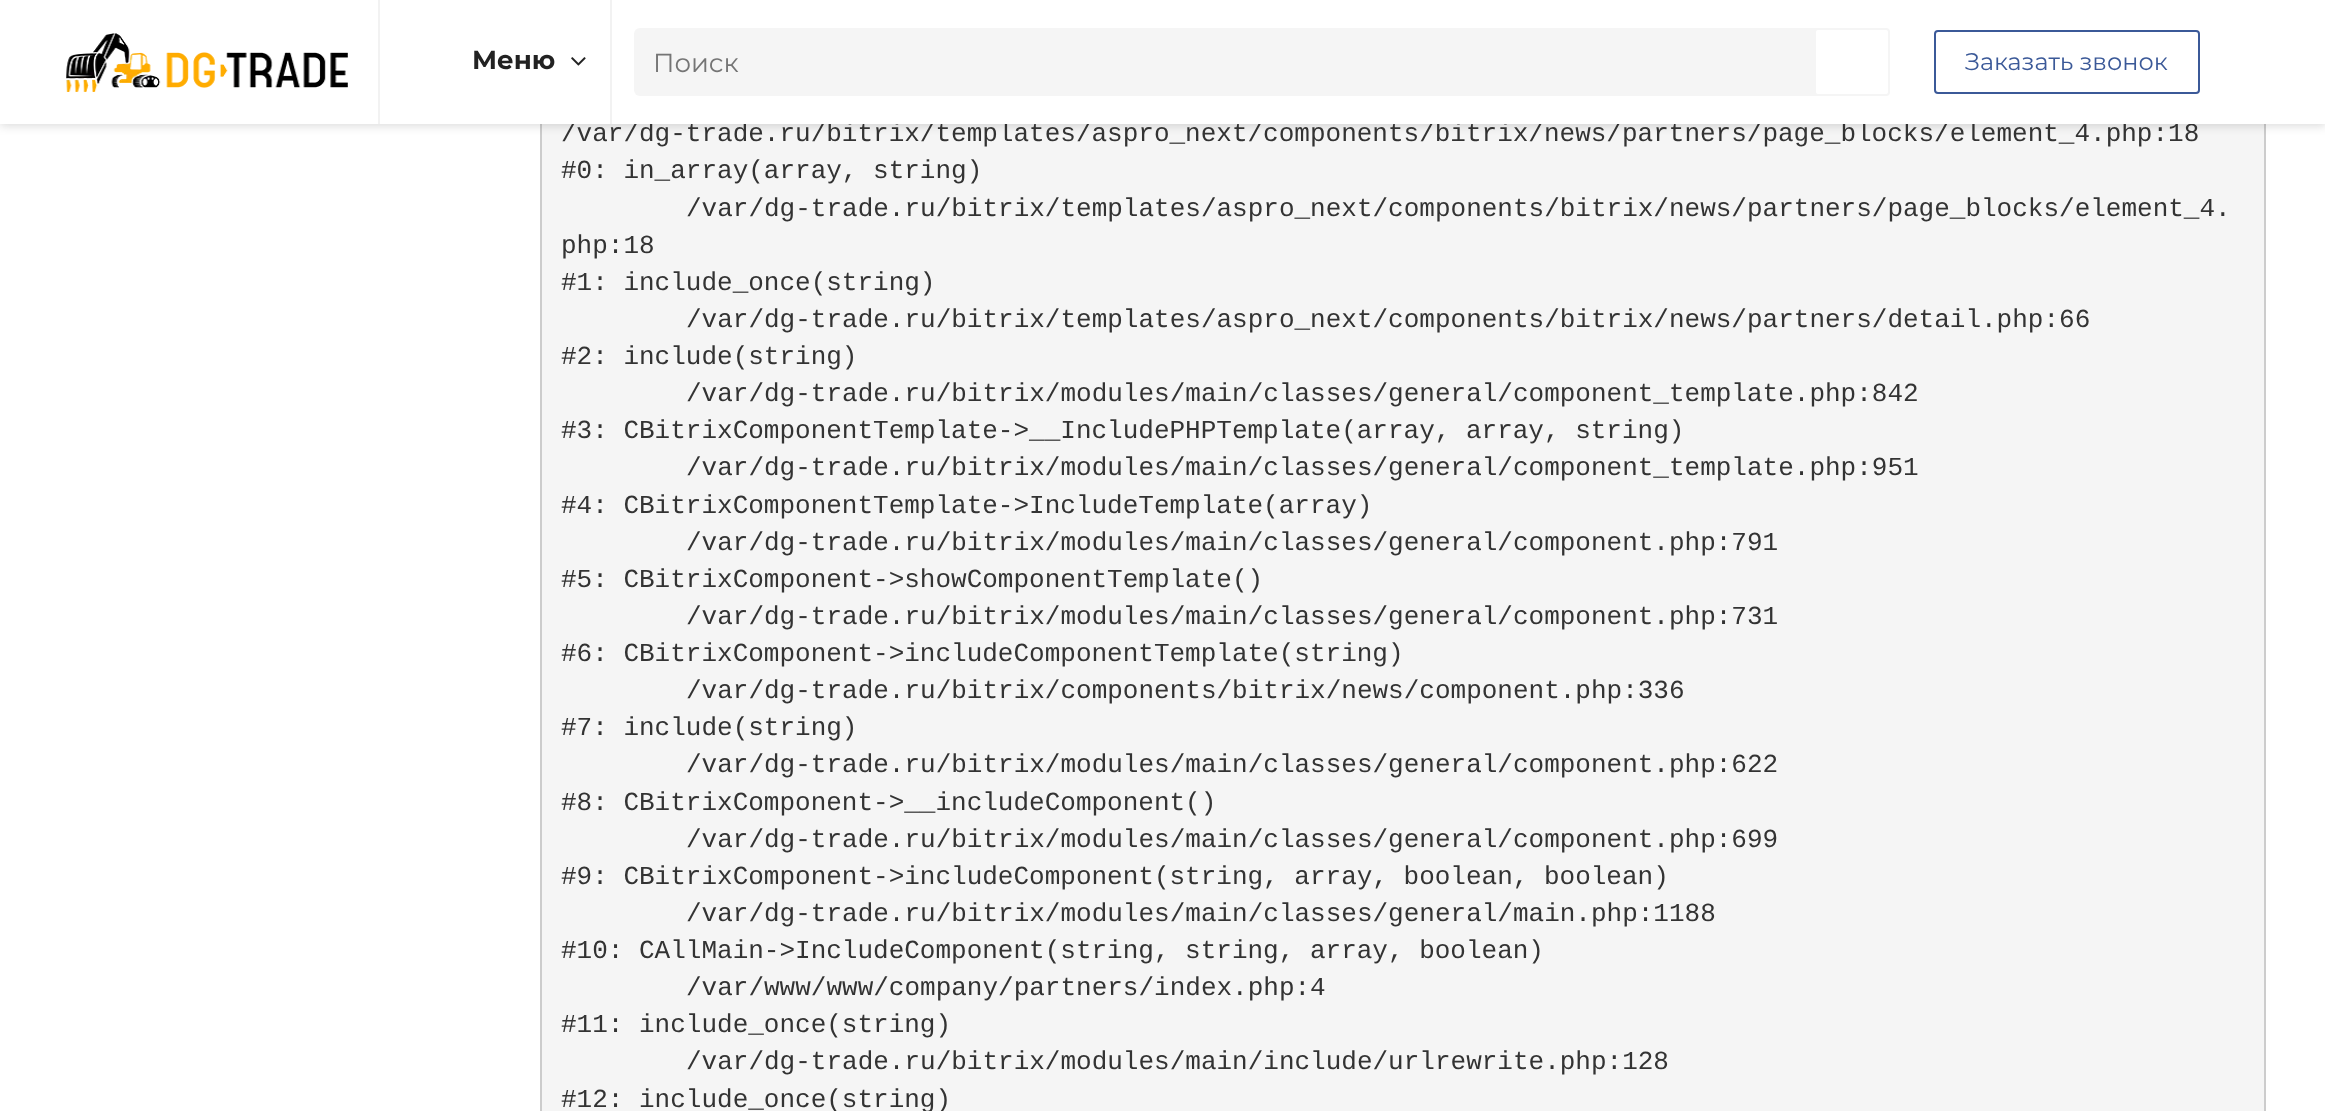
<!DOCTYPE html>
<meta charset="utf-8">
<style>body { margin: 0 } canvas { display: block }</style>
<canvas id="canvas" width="2325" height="1111"></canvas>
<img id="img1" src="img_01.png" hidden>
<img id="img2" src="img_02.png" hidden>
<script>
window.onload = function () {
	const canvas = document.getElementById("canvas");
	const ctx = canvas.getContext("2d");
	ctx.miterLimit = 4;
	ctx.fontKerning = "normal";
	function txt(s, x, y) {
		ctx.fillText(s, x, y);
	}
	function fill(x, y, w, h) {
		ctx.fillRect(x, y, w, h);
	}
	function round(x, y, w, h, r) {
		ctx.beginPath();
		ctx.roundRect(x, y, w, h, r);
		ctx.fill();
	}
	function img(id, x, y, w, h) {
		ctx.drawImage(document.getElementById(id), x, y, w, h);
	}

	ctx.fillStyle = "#FFFFFF";
	fill(0, 0, 2325, 1111);
	ctx.fillStyle = "#F5F5F5";
	fill(542, 124, 1722, 987);
	ctx.strokeStyle = "#CCCCCC";
	ctx.lineWidth = 2;
	ctx.strokeRect(541, 23, 1724, 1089);
	ctx.fillStyle = "rgba(0, 0, 0, 0.14)";
	ctx.filter = "blur(5px)";
	ctx.beginPath();
	ctx.rect(0, 2, 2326, 124);
	ctx.fill();
	ctx.filter = "none";
	ctx.font = "26px Liberation Mono";
	ctx.fillStyle = "#333333";
	txt("/var/dg-trade.ru/bitrix/templates/aspro_next/components/bitrix/news/partners/page_blocks/element_4.php:18", 561, 141);
	ctx.fillStyle = "#FFFFFF";
	fill(0, 0, 2325, 124);
	img("img1", 66, 33, 282, 59);
	ctx.fillStyle = "#F5F5F5";
	round(634, 28, 1256, 68, 6);
	ctx.fillStyle = "#FFFFFF";
	ctx.beginPath();
	ctx.roundRect(1815, 29, 74, 66, 3);
	ctx.fill();
	ctx.strokeStyle = "#F5F5F5";
	ctx.stroke();
	ctx.font = "26px Montserrat";
	ctx.fillStyle = "#757575";
	txt("Поиск", 653, 72);
	img("img2", 571, 57, 15, 9);
	ctx.font = "bold 26px Montserrat";
	ctx.fillStyle = "#222222";
	txt("Меню", 472, 69);
	ctx.fillStyle = "#F2F2F2";
	fill(610, 0, 2, 124);
	ctx.beginPath();
	ctx.roundRect(1935, 31, 264, 62, 3);
	ctx.strokeStyle = "#3B5998";
	ctx.stroke();
	ctx.font = "24px Montserrat";
	ctx.fillStyle = "#3B5998";
	txt("Заказать звонок", 1965, 70);
	ctx.fillStyle = "#F2F2F2";
	fill(378, 0, 2, 124);
	ctx.font = "26px Liberation Mono";
	ctx.fillStyle = "#333333";
	txt("#0: in_array(array, string)", 561, 178);
	txt("/var/dg-trade.ru/bitrix/templates/aspro_next/components/bitrix/news/partners/page_blocks/element_4.", 686, 216);
	txt("php:18", 561, 253);
	txt("#1: include_once(string)", 561, 290);
	txt("/var/dg-trade.ru/bitrix/templates/aspro_next/components/bitrix/news/partners/detail.php:66", 686, 327);
	txt("#2: include(string)", 561, 364);
	txt("/var/dg-trade.ru/bitrix/modules/main/classes/general/component_template.php:842", 686, 401);
	txt("#3: CBitrixComponentTemplate->__IncludePHPTemplate(array, array, string)", 561, 438);
	txt("/var/dg-trade.ru/bitrix/modules/main/classes/general/component_template.php:951", 686, 475);
	txt("#4: CBitrixComponentTemplate->IncludeTemplate(array)", 561, 513);
	txt("/var/dg-trade.ru/bitrix/modules/main/classes/general/component.php:791", 686, 550);
	txt("#5: CBitrixComponent->showComponentTemplate()", 561, 587);
	txt("/var/dg-trade.ru/bitrix/modules/main/classes/general/component.php:731", 686, 624);
	txt("#6: CBitrixComponent->includeComponentTemplate(string)", 561, 661);
	txt("/var/dg-trade.ru/bitrix/components/bitrix/news/component.php:336", 686, 698);
	txt("#7: include(string)", 561, 735);
	txt("/var/dg-trade.ru/bitrix/modules/main/classes/general/component.php:622", 686, 772);
	txt("#8: CBitrixComponent->__includeComponent()", 561, 810);
	txt("/var/dg-trade.ru/bitrix/modules/main/classes/general/component.php:699", 686, 847);
	txt("#9: CBitrixComponent->includeComponent(string, array, boolean, boolean)", 561, 884);
	txt("/var/dg-trade.ru/bitrix/modules/main/classes/general/main.php:1188", 686, 921);
	txt("#10: CAllMain->IncludeComponent(string, string, array, boolean)", 561, 958);
	txt("/var/www/www/company/partners/index.php:4", 686, 995);
	txt("#11: include_once(string)", 561, 1032);
	txt("/var/dg-trade.ru/bitrix/modules/main/include/urlrewrite.php:128", 686, 1069);
	txt("#12: include_once(string)", 561, 1107);
};
</script>
